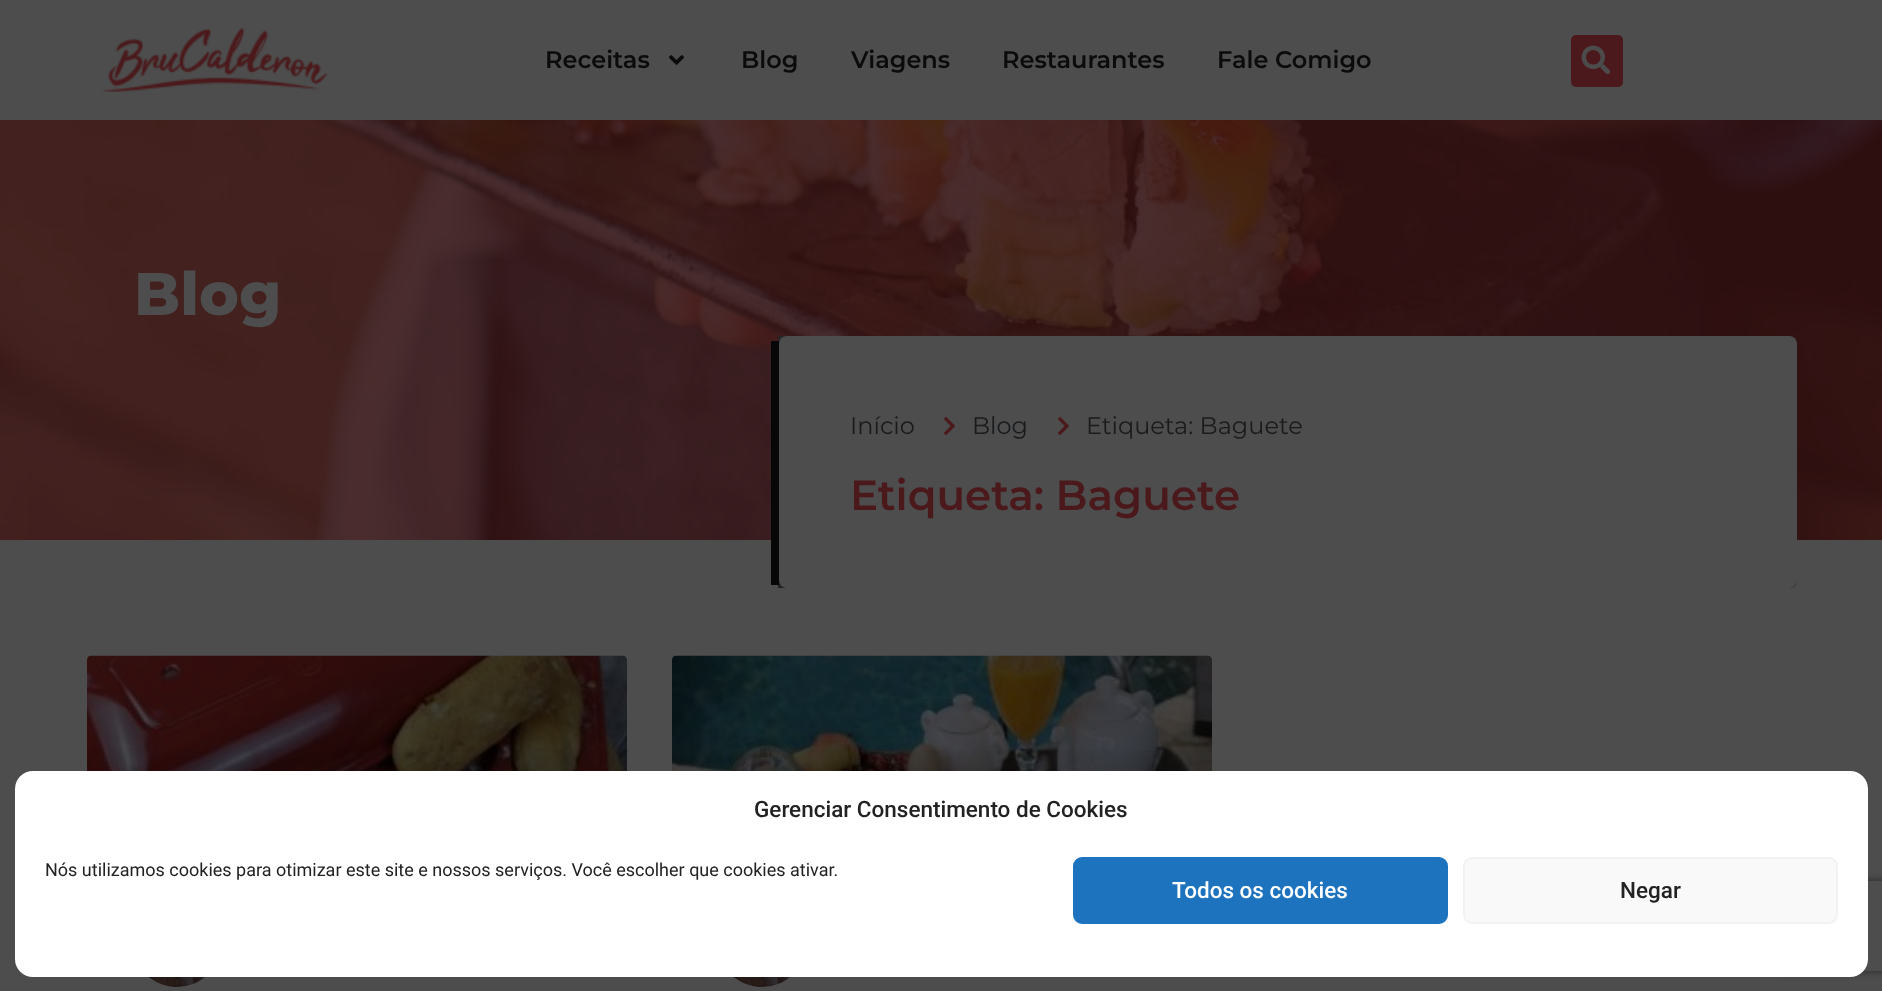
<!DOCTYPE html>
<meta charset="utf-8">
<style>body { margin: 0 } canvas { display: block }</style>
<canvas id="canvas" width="1882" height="991"></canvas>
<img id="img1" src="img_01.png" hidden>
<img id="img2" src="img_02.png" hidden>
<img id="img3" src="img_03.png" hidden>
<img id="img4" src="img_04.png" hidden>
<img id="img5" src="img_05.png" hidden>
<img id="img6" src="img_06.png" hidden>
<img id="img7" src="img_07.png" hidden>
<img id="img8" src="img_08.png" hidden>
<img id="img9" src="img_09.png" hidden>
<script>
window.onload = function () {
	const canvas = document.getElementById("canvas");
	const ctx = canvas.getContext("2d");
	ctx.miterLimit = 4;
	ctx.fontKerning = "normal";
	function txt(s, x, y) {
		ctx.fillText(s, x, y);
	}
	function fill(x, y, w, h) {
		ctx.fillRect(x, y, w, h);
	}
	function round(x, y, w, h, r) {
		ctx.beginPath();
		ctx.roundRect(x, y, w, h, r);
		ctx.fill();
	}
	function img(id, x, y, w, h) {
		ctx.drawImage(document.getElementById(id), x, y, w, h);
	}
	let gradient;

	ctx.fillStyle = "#4D4D4D";
	fill(0, 0, 1882, 991);
	img("img1", 102, 28, 225, 64);
	img("img2", 669, 55, 15, 10);
	ctx.fillStyle = "#4B191B";
	round(1571, 35, 52, 52, 5);
	img("img3", 1581, 45, 29, 29);
	fill(0, 120, 1882, 420);
	img("img4", 0, 120, 1882, 420);
	ctx.fillStyle = "#252525";
	ctx.beginPath();
	ctx.moveTo(778, 336);
	ctx.lineTo(1790, 336);
	ctx.bezierCurveTo(1794, 336, 1797, 339, 1797, 344);
	ctx.lineTo(1797, 580);
	ctx.bezierCurveTo(1797, 585, 1794, 588, 1790, 588);
	ctx.lineTo(778, 588);
	ctx.closePath();
	ctx.fill();
	ctx.fillStyle = "#070707";
	fill(771, 341, 8, 244);
	ctx.fillStyle = "#4D4D4D";
	round(779, 336, 1018, 252, 8);
	img("img5", 944, 417, 11, 18);
	img("img5", 1058, 417, 11, 18);
	img("img6", 87, 655, 540, 116);
	gradient = ctx.createLinearGradient(357, 942, 357, 656);
	gradient.addColorStop(0, "rgba(0, 0, 0, 0.35)");
	gradient.addColorStop(0.75, "rgba(0, 0, 0, 0)");
	ctx.fillStyle = gradient;
	fill(87, 748, 535, 23);
	img("img7", 149, 977, 56, 10);
	img("img8", 672, 655, 540, 116);
	gradient = ctx.createLinearGradient(942, 942, 942, 656);
	gradient.addColorStop(0, "rgba(0, 0, 0, 0.35)");
	gradient.addColorStop(0.75, "rgba(0, 0, 0, 0)");
	ctx.fillStyle = gradient;
	fill(672, 750, 540, 21);
	img("img9", 734, 977, 56, 10);
	ctx.save();
	ctx.beginPath();
	ctx.moveTo(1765, 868);
	ctx.lineTo(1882, 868);
	ctx.lineTo(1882, 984);
	ctx.lineTo(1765, 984);
	ctx.closePath();
	ctx.moveTo(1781, 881);
	ctx.lineTo(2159, 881);
	ctx.bezierCurveTo(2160.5, 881, 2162, 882.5, 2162, 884);
	ctx.lineTo(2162, 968);
	ctx.bezierCurveTo(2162, 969.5, 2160.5, 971, 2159, 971);
	ctx.lineTo(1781, 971);
	ctx.bezierCurveTo(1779.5, 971, 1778, 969.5, 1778, 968);
	ctx.lineTo(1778, 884);
	ctx.bezierCurveTo(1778, 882.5, 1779.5, 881, 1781, 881);
	ctx.closePath();
	ctx.clip("evenodd");
	ctx.fillStyle = "#262626";
	ctx.filter = "blur(4px)";
	ctx.beginPath();
	ctx.roundRect(1778, 881, 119, 90, 3);
	ctx.fill();
	ctx.filter = "none";
	ctx.restore();
	ctx.fillStyle = "#FFFFFF";
	round(15, 771, 1853, 206, 18);
	ctx.fillStyle = "#1E73BE";
	ctx.beginPath();
	ctx.roundRect(1074, 858, 373, 65, 8);
	ctx.fill();
	ctx.strokeStyle = "#1E73BE";
	ctx.lineWidth = 2;
	ctx.stroke();
	ctx.fillStyle = "#F9F9F9";
	ctx.beginPath();
	ctx.roundRect(1464, 858, 373, 65, 8);
	ctx.fill();
	ctx.strokeStyle = "#F2F2F2";
	ctx.stroke();
	ctx.font = "600 24px Montserrat";
	ctx.fillStyle = "#0B0B0B";
	txt("Receitas", 545, 68);
	txt("Blog", 741, 68);
	txt("Viagens", 851, 68);
	txt("Restaurantes", 1002, 68);
	txt("Fale Comigo", 1217, 68);
	ctx.font = "800 60px Montserrat";
	ctx.fillStyle = "#4D4D4D";
	txt("Blog", 134, 315);
	ctx.font = "24px Montserrat";
	ctx.fillStyle = "#191B1D";
	txt("Início", 850, 434);
	txt("Blog", 972, 434);
	txt("Etiqueta: Baguete", 1086, 434);
	ctx.font = "600 42px Montserrat";
	ctx.fillStyle = "#4B191B";
	txt("Etiqueta: Baguete", 850, 510);
	ctx.font = "500 22.5px Roboto";
	ctx.fillStyle = "#222222";
	txt("Gerenciar Consentimento de Cookies", 754, 817);
	ctx.font = "18px Roboto";
	txt("Nós utilizamos cookies para otimizar este site e nossos serviços. Você escolher que cookies ativar.", 45, 876);
	ctx.font = "500 22.5px Roboto";
	ctx.fillStyle = "#FFFFFF";
	txt("Todos os cookies", 1172, 898);
	ctx.fillStyle = "#222222";
	txt("Negar", 1620, 898);
};
</script>
